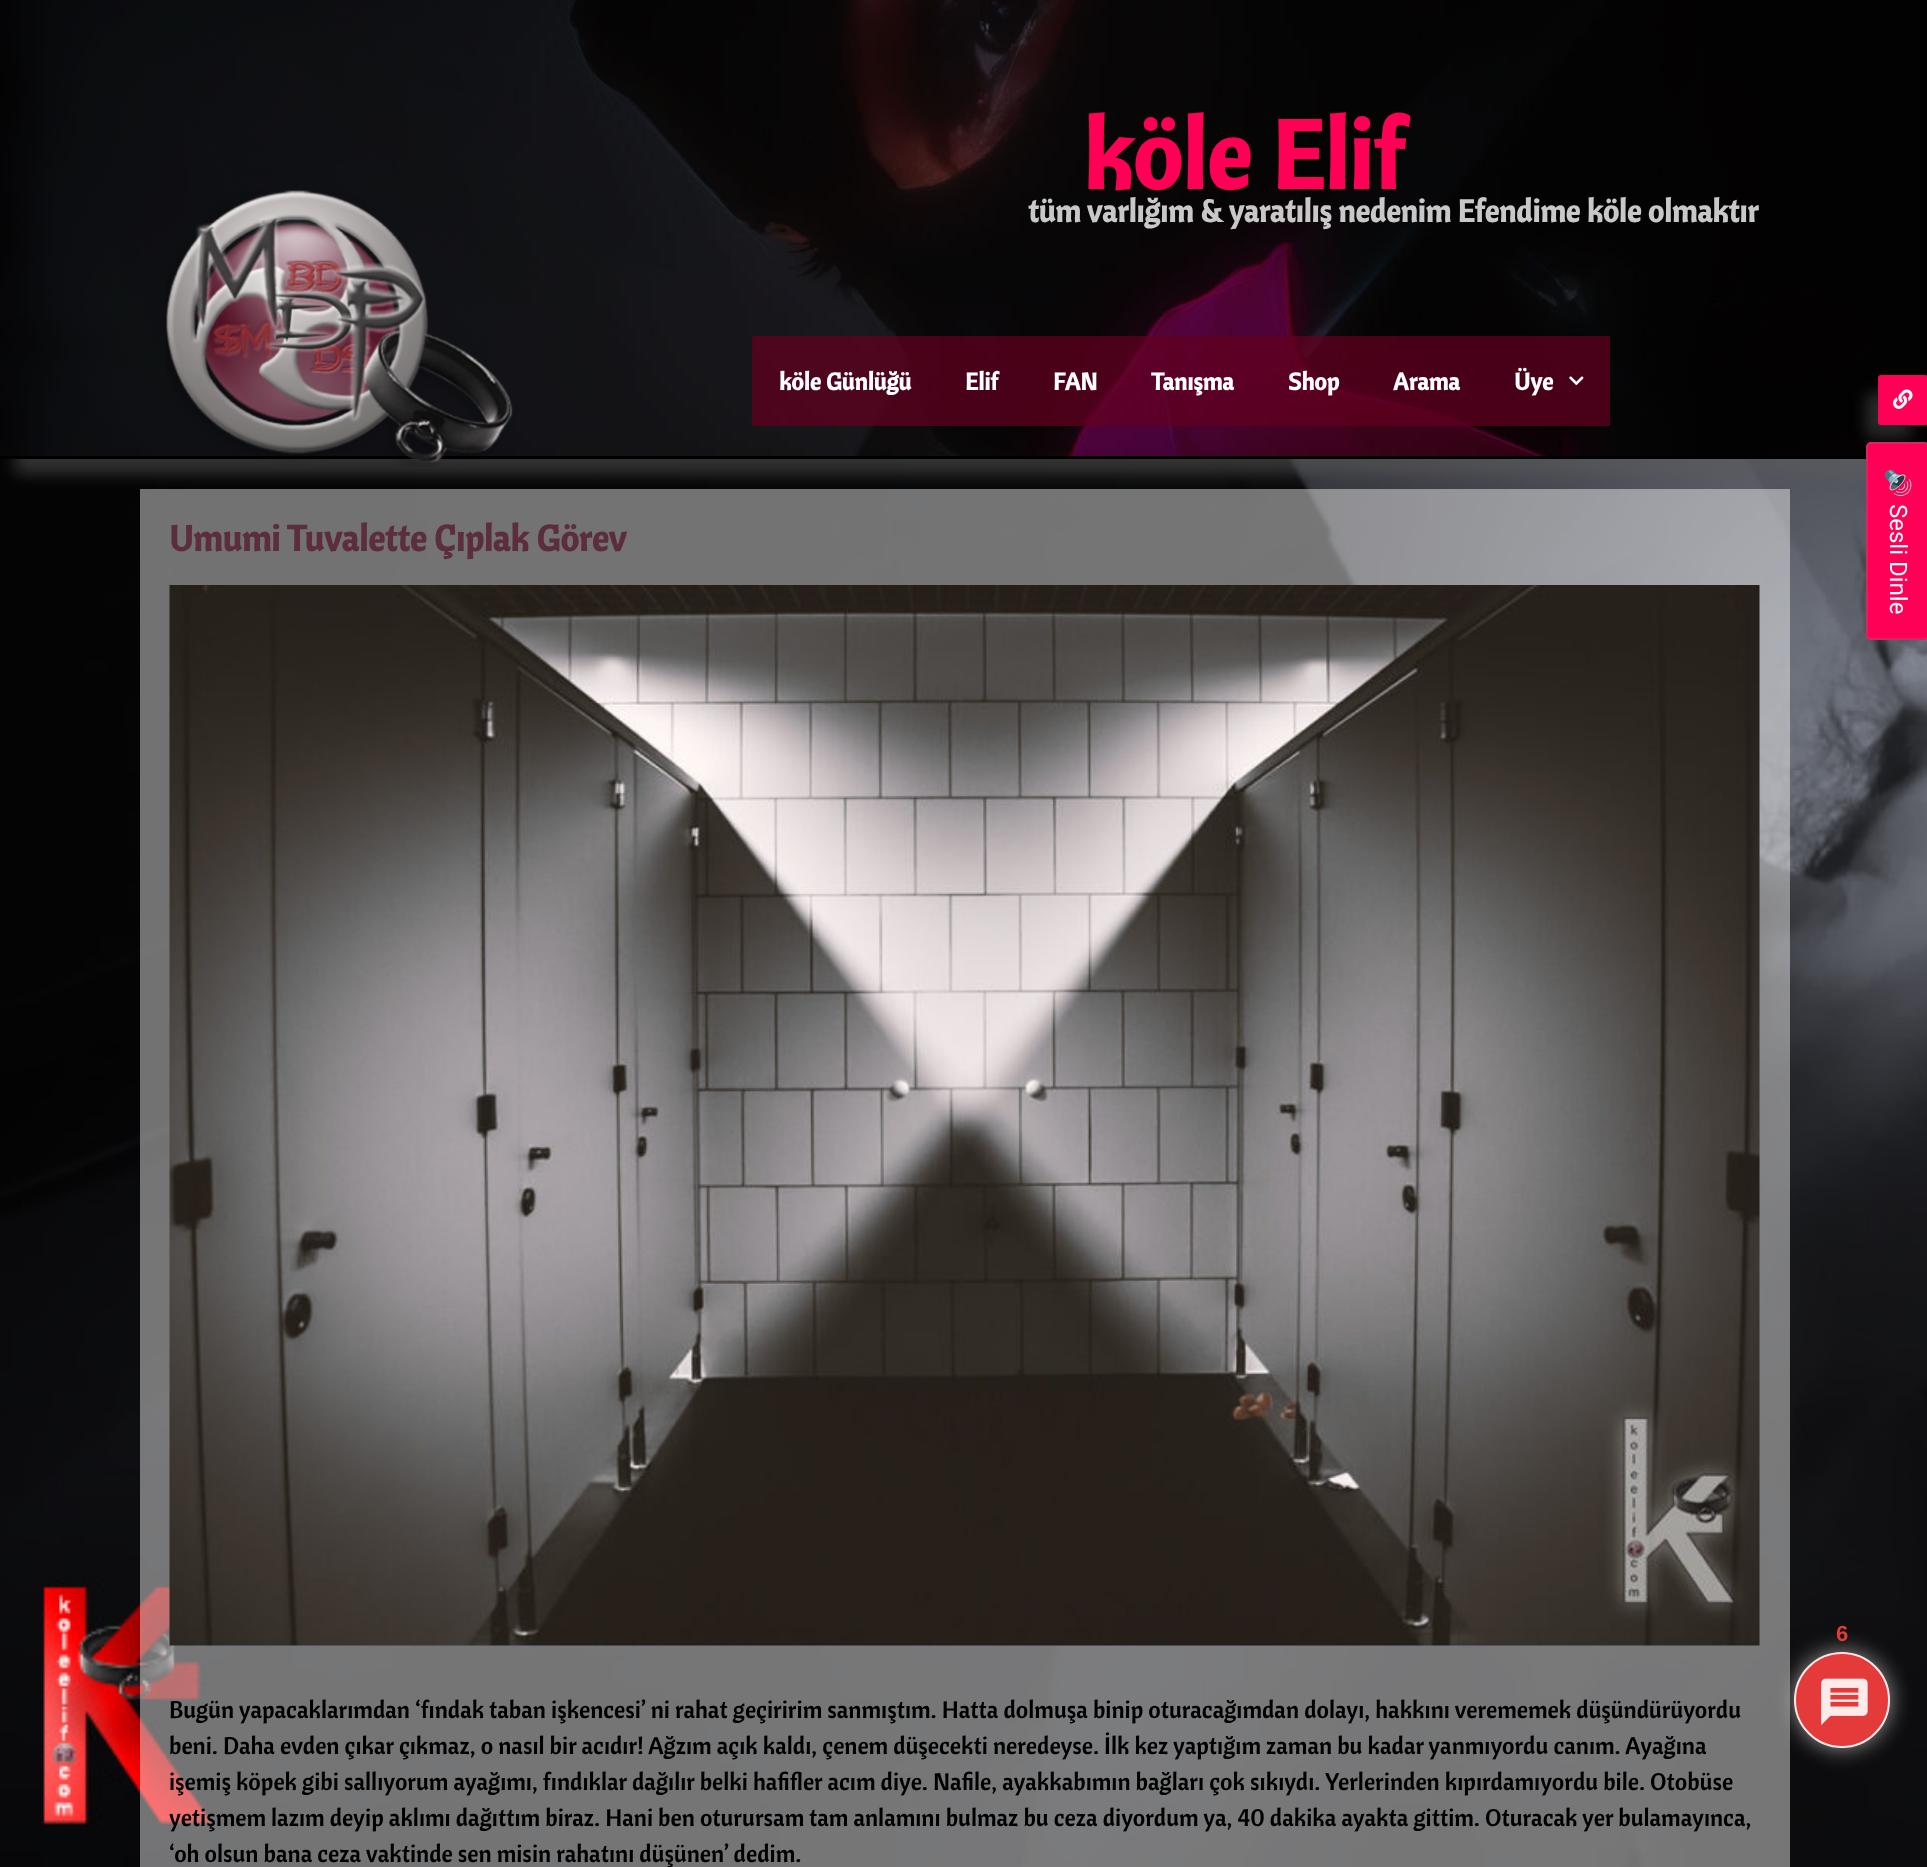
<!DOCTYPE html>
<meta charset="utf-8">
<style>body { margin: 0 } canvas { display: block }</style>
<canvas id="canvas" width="1927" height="1867"></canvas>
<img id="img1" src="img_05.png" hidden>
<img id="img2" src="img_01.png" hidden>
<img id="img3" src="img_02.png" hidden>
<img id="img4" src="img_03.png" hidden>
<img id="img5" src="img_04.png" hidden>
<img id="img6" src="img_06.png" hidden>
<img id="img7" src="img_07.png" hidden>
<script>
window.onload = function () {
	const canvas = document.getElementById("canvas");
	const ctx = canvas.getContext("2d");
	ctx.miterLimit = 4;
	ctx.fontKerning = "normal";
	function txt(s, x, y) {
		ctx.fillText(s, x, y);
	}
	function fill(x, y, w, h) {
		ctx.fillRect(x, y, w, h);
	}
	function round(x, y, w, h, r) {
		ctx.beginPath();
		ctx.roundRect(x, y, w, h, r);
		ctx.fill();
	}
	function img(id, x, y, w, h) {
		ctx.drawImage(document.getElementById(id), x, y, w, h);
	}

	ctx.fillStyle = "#FFFFFF";
	fill(0, 0, 1927, 1867);
	img("img1", 0, 459, 1927, 1408);
	ctx.fillStyle = "rgba(255, 255, 255, 0.44)";
	fill(140, 489, 1650, 1378);
	ctx.fillStyle = "rgba(94, 94, 94, 0.5)";
	ctx.filter = "blur(7.5px)";
	ctx.beginPath();
	ctx.rect(15, 15, 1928, 459);
	ctx.fill();
	ctx.filter = "none";
	img("img2", 0, 0, 1927, 456);
	ctx.fillStyle = "#000000";
	fill(0, 456, 1866, 3);
	img("img3", 166, 190, 347, 277);
	ctx.fillStyle = "rgba(99, 0, 32, 0.72)";
	fill(752, 336, 858, 90);
	img("img4", 1569, 376, 15, 9);
	ctx.fillStyle = "rgba(82, 82, 82, 0.5)";
	ctx.filter = "blur(7.5px)";
	ctx.beginPath();
	ctx.rect(1866, 393, 44, 44);
	ctx.fill();
	ctx.filter = "none";
	ctx.fillStyle = "#FF0056";
	round(1878, 375, 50, 50, 3);
	img("img5", 1893, 389, 20, 20);
	ctx.beginPath();
	ctx.moveTo(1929, 447);
	ctx.lineTo(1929, 635);
	ctx.bezierCurveTo(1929, 638, 1927, 640, 1925, 640);
	ctx.lineTo(1871, 640);
	ctx.bezierCurveTo(1868, 640, 1866, 638, 1866, 635);
	ctx.lineTo(1866, 447);
	ctx.bezierCurveTo(1866, 445, 1868, 442, 1871, 442);
	ctx.lineTo(1925, 442);
	ctx.bezierCurveTo(1927, 442, 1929, 445, 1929, 447);
	ctx.closePath();
	ctx.fill();
	ctx.beginPath();
	ctx.moveTo(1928.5, 447);
	ctx.lineTo(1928.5, 635);
	ctx.bezierCurveTo(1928.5, 637.5, 1927, 639, 1925, 639);
	ctx.lineTo(1871, 639);
	ctx.bezierCurveTo(1868.5, 639, 1867, 637.5, 1867, 635);
	ctx.lineTo(1867, 447);
	ctx.bezierCurveTo(1867, 445, 1868.5, 443, 1871, 443);
	ctx.lineTo(1925, 443);
	ctx.bezierCurveTo(1927, 443, 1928.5, 445, 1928.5, 447);
	ctx.closePath();
	ctx.strokeStyle = "#CC3366";
	ctx.lineWidth = 1.5;
	ctx.stroke();
	img("img6", 169, 585, 1591, 1061);
	ctx.save();
	ctx.beginPath();
	ctx.moveTo(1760, 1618);
	ctx.lineTo(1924, 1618);
	ctx.lineTo(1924, 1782);
	ctx.lineTo(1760, 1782);
	ctx.closePath();
	ctx.moveTo(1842, 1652);
	ctx.bezierCurveTo(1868.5, 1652, 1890, 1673.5, 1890, 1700);
	ctx.bezierCurveTo(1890, 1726.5, 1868.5, 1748, 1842, 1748);
	ctx.bezierCurveTo(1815.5, 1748, 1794, 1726.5, 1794, 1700);
	ctx.bezierCurveTo(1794, 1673.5, 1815.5, 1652, 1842, 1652);
	ctx.closePath();
	ctx.clip("evenodd");
	ctx.fillStyle = "rgba(170, 170, 170, 0.9)";
	ctx.filter = "blur(11px)";
	ctx.beginPath();
	ctx.roundRect(1794, 1652, 96, 96, 48);
	ctx.fill();
	ctx.filter = "none";
	ctx.restore();
	ctx.fillStyle = "rgba(252, 64, 63, 0.9)";
	ctx.beginPath();
	ctx.arc(1842, 1700, 48, 0, Math.PI * 2);
	ctx.fill();
	ctx.beginPath();
	ctx.arc(1842, 1700, 47, 0, Math.PI * 2);
	ctx.strokeStyle = "rgba(255, 255, 255, 0.9)";
	ctx.lineWidth = 2;
	ctx.stroke();
	img("img7", 1821, 1678, 47, 47);
	ctx.font = "bold 96px Cantora One";
	ctx.fillStyle = "#FF0056";
	txt("köle Elif", 1083, 189);
	ctx.font = "bold 31.2px Cantora One";
	ctx.fillStyle = "#C8C8C8";
	txt("tüm varlığım & yaratılış nedenim Efendime köle olmaktır", 1028, 222);
	ctx.font = "bold 24px Cantora One";
	ctx.fillStyle = "#FFFFFF";
	txt("köle Günlüğü", 779, 390);
	txt("Elif", 965, 390);
	txt("FAN", 1053, 390);
	txt("Tanışma", 1151, 390);
	txt("Shop", 1288, 390);
	txt("Arama", 1393, 390);
	txt("Üye", 1514, 390);
	ctx.font = "24px Noto Color Emoji";
	ctx.save();
	ctx.translate(1890, 468);
	ctx.rotate(90 * Math.PI / 180);
	ctx.fillText("🔊", 0, 0);
	ctx.restore();
	ctx.font = "24px Roboto";
	ctx.save();
	ctx.translate(1890, 504);
	ctx.rotate(90 * Math.PI / 180);
	ctx.fillText("Sesli Dinle", 0, 0);
	ctx.restore();
	ctx.font = "bold 36px Cantora One";
	ctx.fillStyle = "#5C2D3D";
	txt("Umumi Tuvalette Çıplak Görev", 169, 551);
	ctx.font = "24px Cantora One";
	ctx.fillStyle = "#000000";
	txt("Bugün yapacaklarımdan ‘fındak taban işkencesi’ ni rahat geçiririm sanmıştım. Hatta dolmuşa binip oturacağımdan dolayı, hakkını verememek düşündürüyordu", 169, 1718);
	txt("beni. Daha evden çıkar çıkmaz, o nasıl bir acıdır! Ağzım açık kaldı, çenem düşecekti neredeyse. İlk kez yaptığım zaman bu kadar yanmıyordu canım. Ayağına", 169, 1754);
	txt("işemiş köpek gibi sallıyorum ayağımı, fındıklar dağılır belki hafifler acım diye. Nafile, ayakkabımın bağları çok sıkıydı. Yerlerinden kıpırdamıyordu bile. Otobüse", 169, 1790);
	txt("yetişmem lazım deyip aklımı dağıttım biraz. Hani ben oturursam tam anlamını bulmaz bu ceza diyordum ya, 40 dakika ayakta gittim. Oturacak yer bulamayınca,", 169, 1826);
	txt("‘oh olsun bana ceza vaktinde sen misin rahatını düşünen’ dedim.", 169, 1862);
	ctx.font = "bold 22px Liberation Sans";
	ctx.fillStyle = "#E43B3A";
	txt("6", 1836, 1641);
};
</script>
